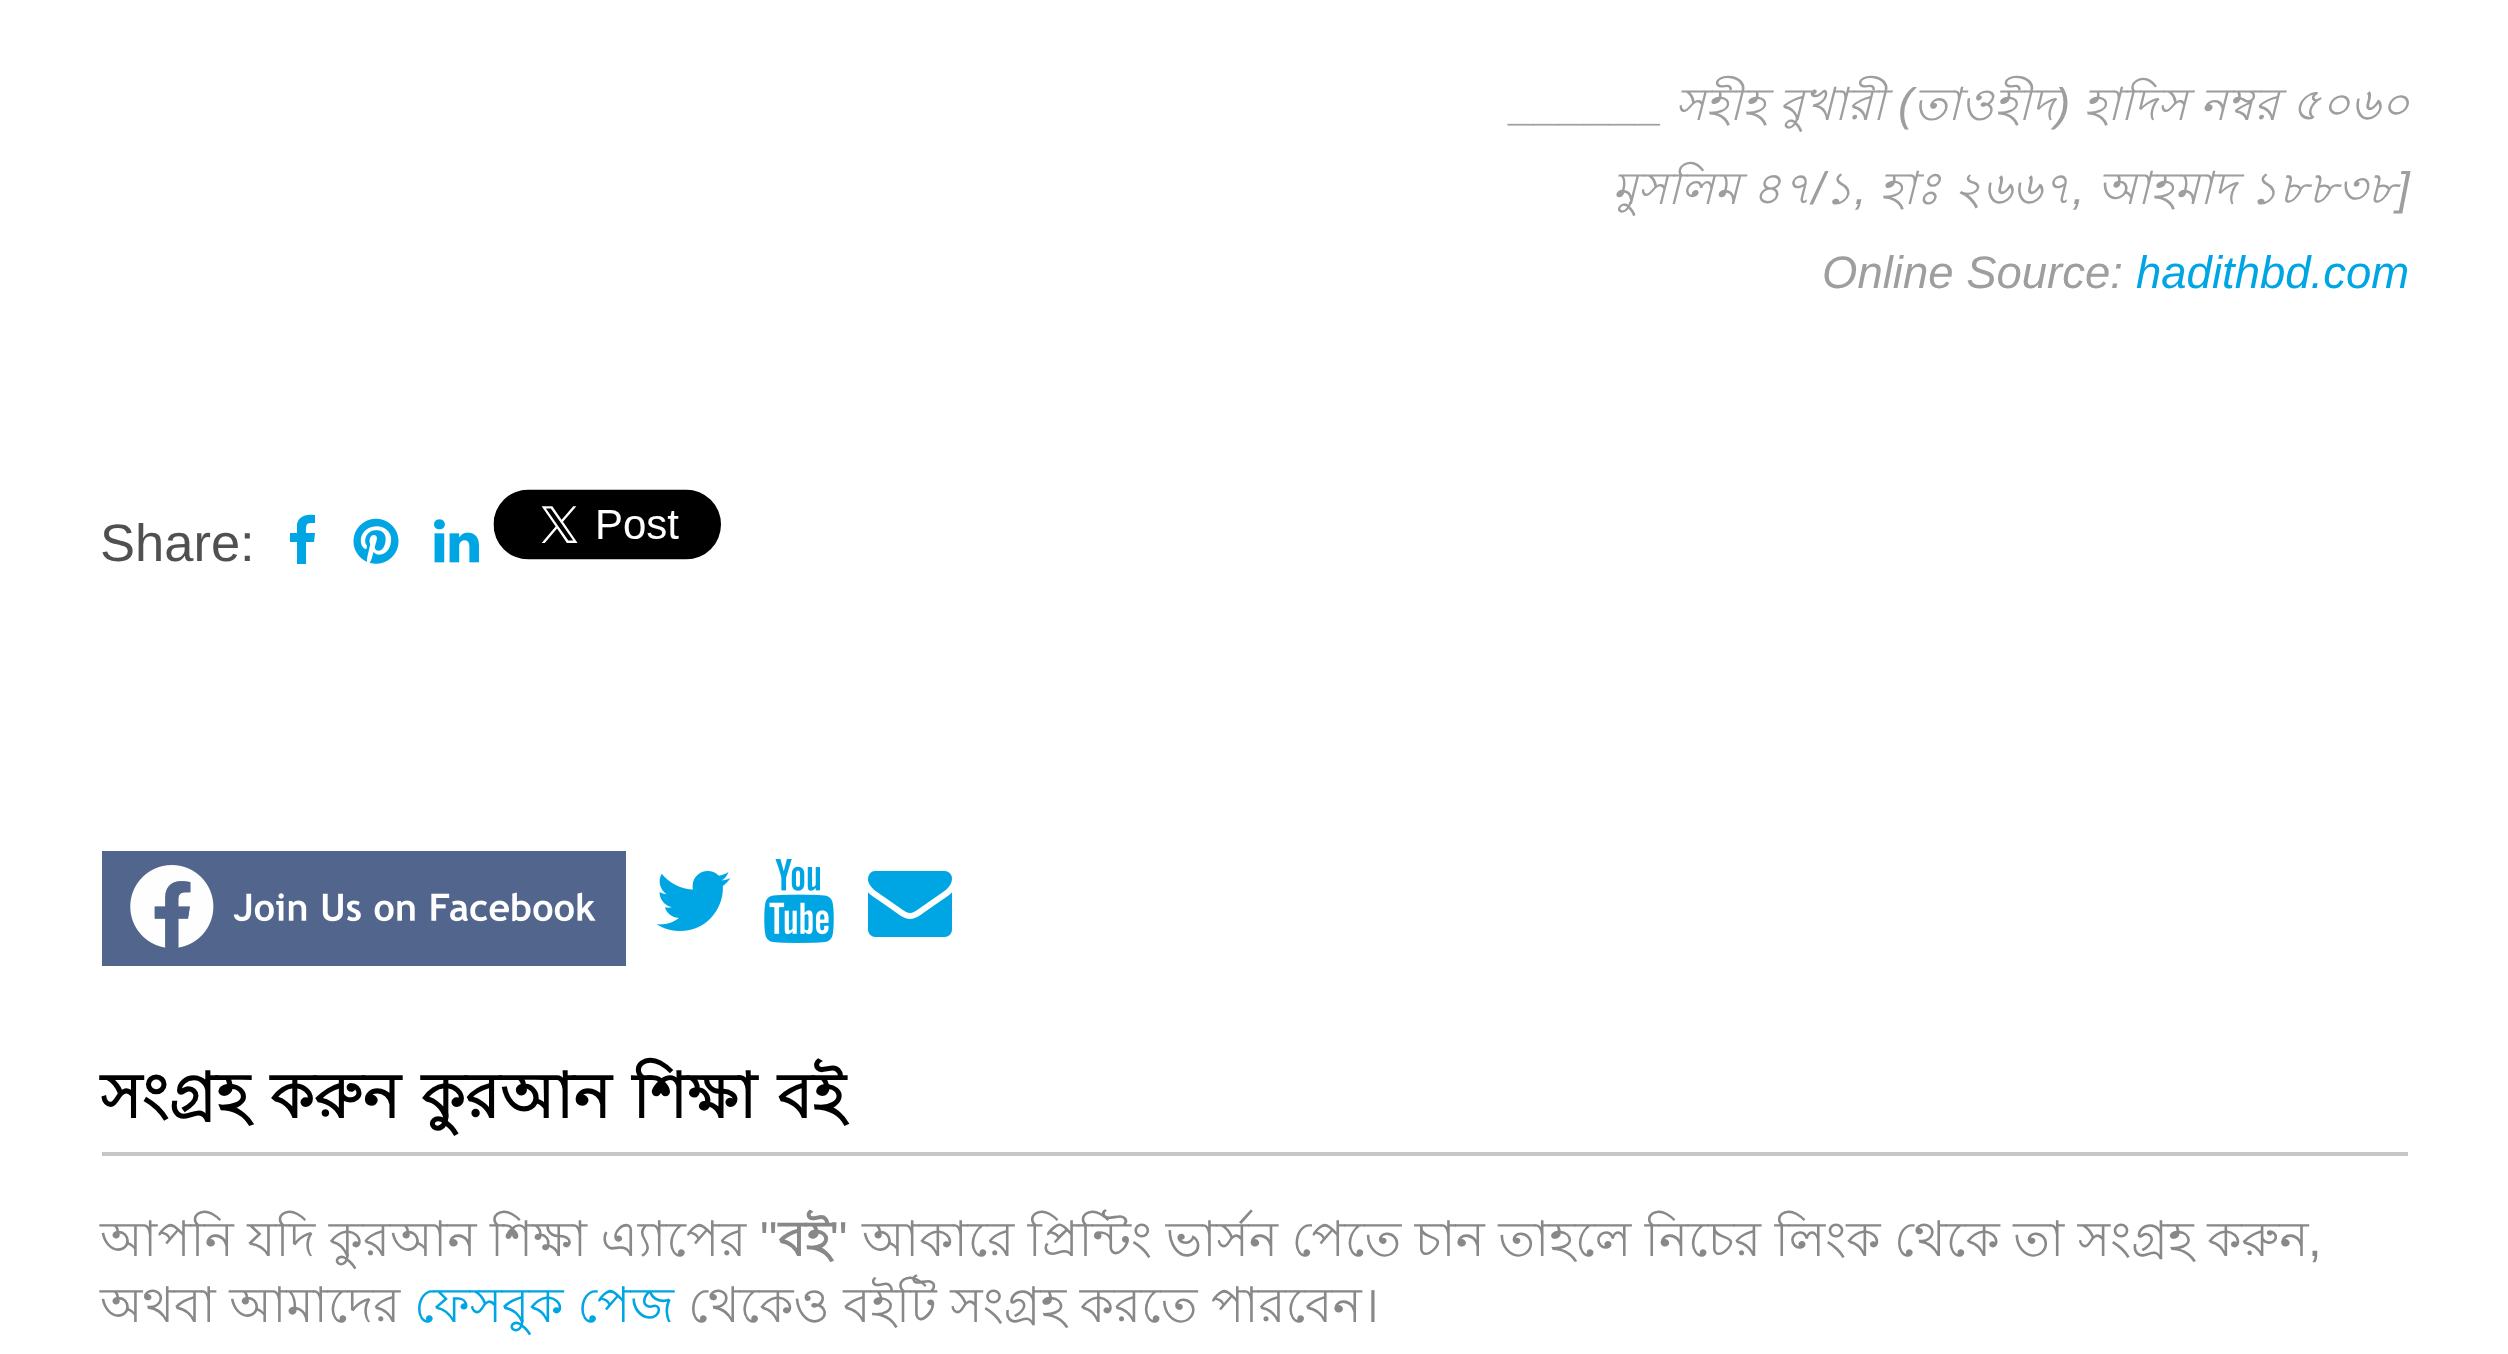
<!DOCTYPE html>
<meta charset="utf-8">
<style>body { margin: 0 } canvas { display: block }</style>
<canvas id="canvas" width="2508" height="1354"></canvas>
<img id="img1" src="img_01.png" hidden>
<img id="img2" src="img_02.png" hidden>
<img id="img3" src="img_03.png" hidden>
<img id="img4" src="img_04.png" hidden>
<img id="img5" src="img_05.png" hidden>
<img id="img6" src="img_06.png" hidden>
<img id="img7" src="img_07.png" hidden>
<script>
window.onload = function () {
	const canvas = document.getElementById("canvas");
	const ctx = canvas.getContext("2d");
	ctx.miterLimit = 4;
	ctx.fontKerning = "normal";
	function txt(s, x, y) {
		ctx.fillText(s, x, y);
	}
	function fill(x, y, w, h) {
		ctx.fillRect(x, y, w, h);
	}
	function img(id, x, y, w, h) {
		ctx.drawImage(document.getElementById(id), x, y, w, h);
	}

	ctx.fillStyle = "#FFFFFF";
	fill(0, 0, 2508, 1354);
	ctx.fillStyle = "#00A6E4";
	ctx.beginPath();
	ctx.moveTo(315, 515);
	ctx.lineTo(315, 523);
	ctx.bezierCurveTo(306, 523, 306, 523, 306, 533);
	ctx.lineTo(315, 533);
	ctx.lineTo(314, 542);
	ctx.lineTo(306, 542);
	ctx.lineTo(306, 564);
	ctx.lineTo(297, 564);
	ctx.lineTo(297, 542);
	ctx.lineTo(290, 542);
	ctx.lineTo(290, 533);
	ctx.lineTo(297, 533);
	ctx.lineTo(297, 524);
	ctx.bezierCurveTo(299, 515, 308, 514, 315, 515);
	ctx.closePath();
	ctx.fill();
	img("img1", 353, 518, 46, 46);
	img("img2", 434, 519, 45, 44);
	img("img3", 493, 489, 228, 71);
	img("img4", 102, 851, 524, 115);
	img("img5", 656, 871, 75, 60);
	img("img6", 764, 859, 70, 84);
	img("img7", 868, 871, 84, 66);
	ctx.fillStyle = "#C6C6C6";
	fill(102, 1152, 2306, 4);
	ctx.font = "italic 45.5px Lohit Bengali";
	ctx.fillStyle = "#9E9E9E";
	txt("সহীহ বুখারী", 1675, 120);
	ctx.font = "italic 45.5px Liberation Sans";
	txt("(", 1898, 120);
	ctx.font = "italic 45.5px Lohit Bengali";
	txt("তাওহীদ", 1913, 120);
	txt("হাদিস নম্বর ৫০৬০", 2083, 120);
	ctx.font = "italic 45.5px Liberation Sans";
	txt("______", 1511, 120);
	txt(")", 2055, 120);
	ctx.font = "italic 45.5px Lohit Bengali";
	txt("মুসলিম ৪৭ ১", 1612, 204);
	txt("হাঃ ২৬৬৭", 1879, 204);
	txt("আহমাদ ১৮৮৩৮", 2097, 204);
	ctx.font = "italic 45.5px Liberation Sans";
	txt("/", 1812, 204);
	txt(",", 1854, 204);
	txt(",", 2072, 204);
	txt("]", 2397, 204);
	txt("Online Source:", 1822, 288);
	ctx.fillStyle = "#00A6E4";
	txt("hadithbd.com", 2136, 288);
	ctx.font = "52.5px Liberation Sans";
	ctx.fillStyle = "#505050";
	txt("Share:", 100, 561);
	ctx.wordSpacing = "3.5px";
	ctx.font = "bold 63px Lohit Bengali";
	ctx.fillStyle = "#000000";
	txt("সংগ্রহ করুন কুরআন শিক্ষা বই", 100, 1118);
	ctx.wordSpacing = "0px";
	ctx.font = "49px Lohit Bengali";
	ctx.fillStyle = "#888888";
	txt("আপনি যদি কুরআন শিক্ষা এ্যাপের", 100, 1256);
	ctx.font = "49px Liberation Sans";
	txt("\"", 760, 1256);
	ctx.font = "bold 49px Lohit Bengali";
	txt("বই", 778, 1256);
	ctx.font = "49px Liberation Sans";
	txt("\"", 830, 1256);
	ctx.font = "49px Lohit Bengali";
	txt("আকারে প্রিন্টিং ভার্সন পেতে চান তাহলে নিচের লিংক থেকে তা সংগ্রহ করুন", 862, 1256);
	ctx.font = "49px Liberation Sans";
	txt(",", 2308, 1256);
	ctx.font = "49px Lohit Bengali";
	txt("অথবা আমাদের", 100, 1322);
	ctx.fillStyle = "#00A6E4";
	txt("ফেসবুক পেজ", 414, 1322);
	ctx.fillStyle = "#888888";
	txt("থেকেও বইটি সংগ্রহ করতে পারবেন।", 688, 1322);
};
</script>
